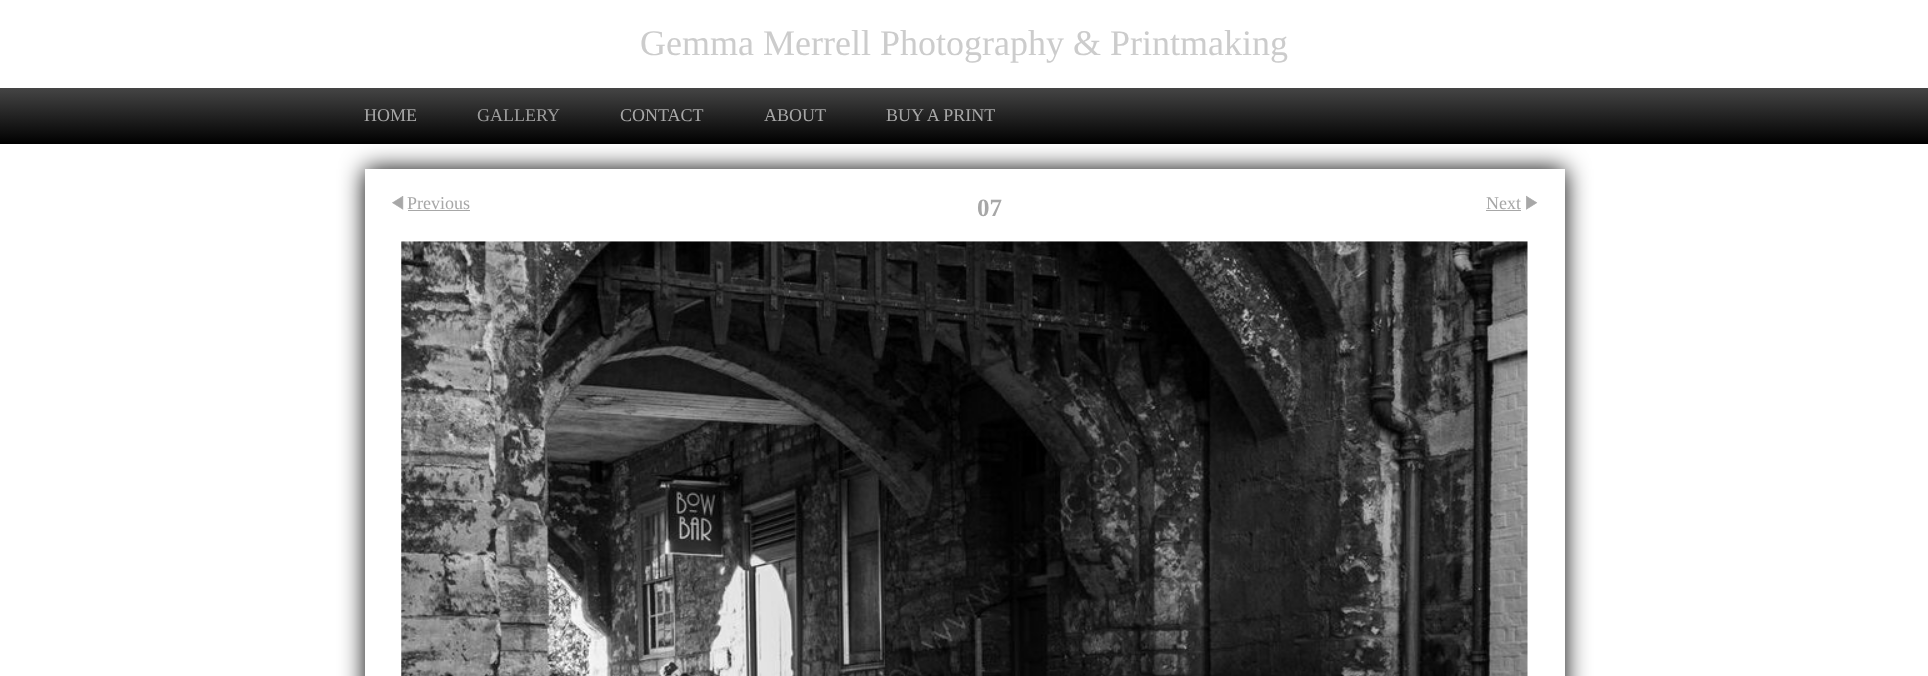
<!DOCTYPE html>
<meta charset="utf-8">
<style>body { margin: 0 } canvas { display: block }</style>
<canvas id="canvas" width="1928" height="676"></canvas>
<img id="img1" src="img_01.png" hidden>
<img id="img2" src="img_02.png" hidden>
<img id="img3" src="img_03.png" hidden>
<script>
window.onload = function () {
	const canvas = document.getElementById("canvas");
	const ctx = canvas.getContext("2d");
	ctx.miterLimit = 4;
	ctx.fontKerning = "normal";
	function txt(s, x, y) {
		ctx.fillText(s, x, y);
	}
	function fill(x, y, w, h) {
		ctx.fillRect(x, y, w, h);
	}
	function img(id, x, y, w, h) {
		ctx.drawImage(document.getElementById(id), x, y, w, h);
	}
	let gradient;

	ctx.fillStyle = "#FFFFFF";
	fill(0, 0, 1928, 676);
	gradient = ctx.createLinearGradient(964, 87, 964, 144);
	gradient.addColorStop(0, "#464646");
	gradient.addColorStop(1, "#000000");
	ctx.fillStyle = gradient;
	fill(0, 88, 1928, 56);
	ctx.save();
	ctx.beginPath();
	ctx.moveTo(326, 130);
	ctx.lineTo(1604, 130);
	ctx.lineTo(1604, 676);
	ctx.lineTo(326, 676);
	ctx.closePath();
	ctx.moveTo(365, 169);
	ctx.lineTo(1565, 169);
	ctx.lineTo(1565, 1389);
	ctx.lineTo(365, 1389);
	ctx.closePath();
	ctx.clip("evenodd");
	ctx.fillStyle = "#000000";
	ctx.filter = "blur(12.5px)";
	ctx.beginPath();
	ctx.rect(365, 169, 1200, 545);
	ctx.fill();
	ctx.filter = "none";
	ctx.restore();
	img("img1", 392, 196, 12, 14);
	ctx.fillStyle = "#A7A7A7";
	fill(408, 210, 62, 1);
	fill(1486, 210, 35, 1);
	img("img2", 1526, 195, 12, 15);
	img("img3", 401, 241, 1127, 435);
	ctx.font = "36px Liberation Serif";
	ctx.fillStyle = "#CCCCCC";
	txt("Gemma Merrell Photography & Printmaking", 640, 55);
	ctx.font = "18px Liberation Serif";
	ctx.fillStyle = "#A7A7A7";
	txt("HOME", 364, 121);
	ctx.fillStyle = "#9C9C9C";
	txt("GALLERY", 477, 121);
	ctx.fillStyle = "#A7A7A7";
	txt("CONTACT", 620, 121);
	txt("ABOUT", 764, 121);
	txt("BUY A PRINT", 886, 121);
	txt("Previous", 407, 209);
	txt("Next", 1486, 209);
	ctx.font = "bold 25px Liberation Serif";
	txt("07", 977, 216);
};
</script>
